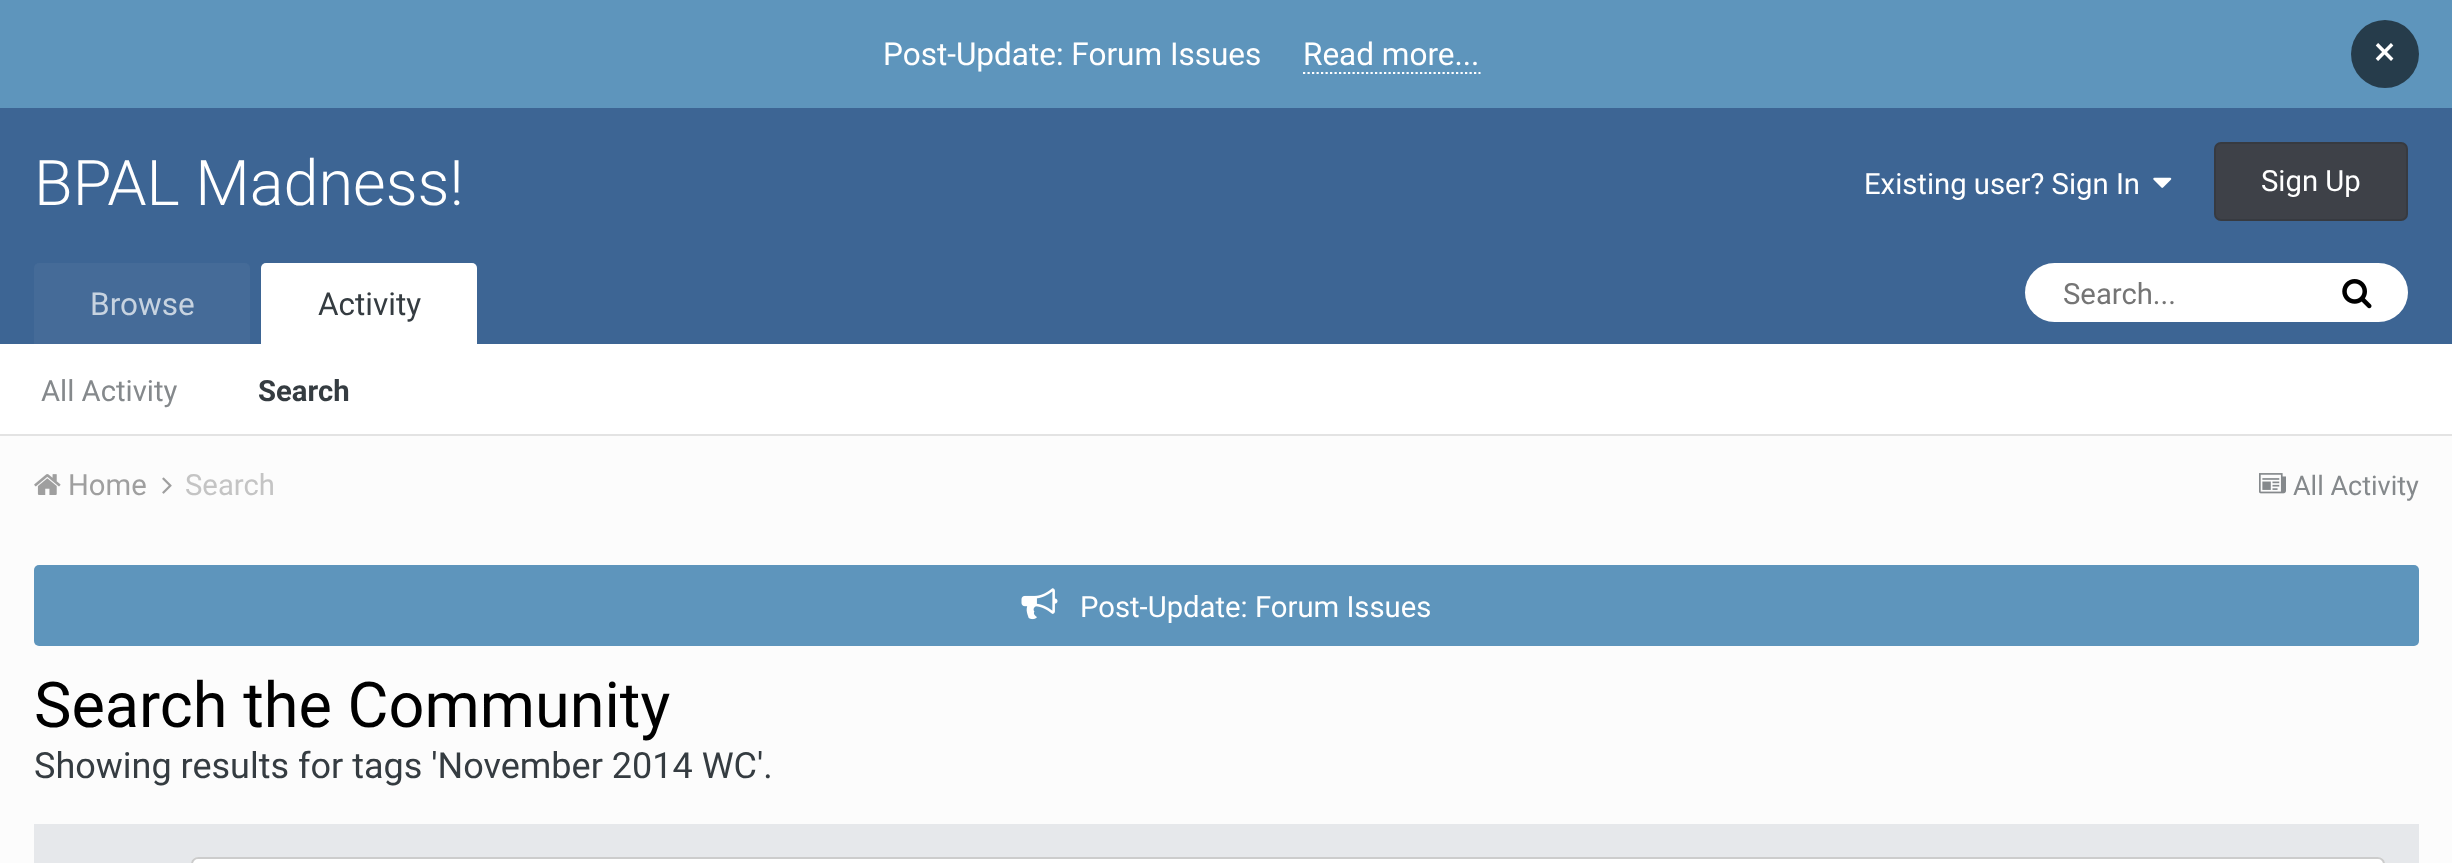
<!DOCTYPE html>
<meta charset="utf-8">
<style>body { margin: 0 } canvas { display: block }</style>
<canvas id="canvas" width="2452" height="863"></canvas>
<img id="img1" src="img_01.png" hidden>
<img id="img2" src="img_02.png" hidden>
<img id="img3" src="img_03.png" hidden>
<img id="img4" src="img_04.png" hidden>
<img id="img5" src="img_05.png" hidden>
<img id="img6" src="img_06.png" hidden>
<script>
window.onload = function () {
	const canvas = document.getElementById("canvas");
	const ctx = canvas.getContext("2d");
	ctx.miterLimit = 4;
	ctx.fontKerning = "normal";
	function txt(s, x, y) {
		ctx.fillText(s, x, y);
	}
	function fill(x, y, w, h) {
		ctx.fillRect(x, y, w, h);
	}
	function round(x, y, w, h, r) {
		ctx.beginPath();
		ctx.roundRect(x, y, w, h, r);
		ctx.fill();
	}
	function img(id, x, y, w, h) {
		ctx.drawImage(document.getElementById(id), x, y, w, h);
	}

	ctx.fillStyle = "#FCFCFC";
	fill(0, 0, 2452, 863);
	ctx.fillStyle = "#E3E3E3";
	fill(0, 434, 2452, 2);
	ctx.fillStyle = "#5E95BC";
	fill(0, 0, 2452, 108);
	ctx.beginPath();
	ctx.moveTo(1303, 73);
	ctx.lineTo(1480.5, 73);
	ctx.strokeStyle = "#FFFFFF";
	ctx.lineWidth = 2.2;
	ctx.setLineDash([2.25, 2.25]);
	ctx.stroke();
	ctx.fillStyle = "#263C4B";
	ctx.beginPath();
	ctx.arc(2385, 54, 34, 0, Math.PI * 2);
	ctx.fill();
	ctx.fillStyle = "#3D6594";
	fill(0, 108, 2452, 236);
	img("img1", 2153, 177, 19, 11);
	ctx.fillStyle = "#3E4148";
	round(2214, 142, 194, 79, 7);
	ctx.beginPath();
	ctx.roundRect(2215, 143, 192, 77, 6);
	ctx.strokeStyle = "rgba(0, 0, 0, 0.1)";
	ctx.lineWidth = 2;
	ctx.setLineDash([]);
	ctx.stroke();
	ctx.fillStyle = "#FFFFFF";
	fill(0, 344, 2452, 90);
	ctx.beginPath();
	ctx.roundRect(261, 263, 216, 81, [5, 5, 0, 0]);
	ctx.fill();
	ctx.fillStyle = "#456B98";
	ctx.beginPath();
	ctx.roundRect(34, 263, 216, 81, [5, 5, 0, 0]);
	ctx.fill();
	ctx.fillStyle = "#FFFFFF";
	round(2025, 263, 383, 59, 29.5);
	img("img2", 2342, 279, 30, 30);
	img("img3", 34, 474, 27, 21);
	img("img4", 162, 477, 10, 17);
	img("img5", 2259, 473, 27, 21);
	ctx.fillStyle = "#5E95BC";
	round(34, 565, 2385, 81, 5);
	img("img6", 1021, 588, 37, 32);
	ctx.fillStyle = "#E6E8EB";
	fill(34, 824, 2385, 39);
	ctx.fillStyle = "#FFFFFF";
	round(191, 857, 2194, 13, 7);
	ctx.beginPath();
	ctx.roundRect(192, 858, 2192, 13, 6);
	ctx.strokeStyle = "rgba(0, 0, 0, 0.2)";
	ctx.stroke();
	ctx.font = "31.5px Roboto";
	txt("Post-Update: Forum Issues", 883, 65);
	txt("Read more...", 1303, 65);
	ctx.font = "40px Roboto";
	txt("×", 2374, 65);
	ctx.font = "300 63px Roboto";
	txt("BPAL Madness!", 34, 205);
	ctx.font = "29.25px Roboto";
	txt("Existing user? Sign In", 1864, 194);
	txt("Sign Up", 2261, 191);
	ctx.font = "31.5px Roboto";
	ctx.fillStyle = "#353C41";
	txt("Activity", 318, 315);
	ctx.font = "29.25px Roboto";
	ctx.fillStyle = "#85898C";
	txt("All Activity", 41, 401);
	ctx.font = "bold 29.25px Roboto";
	ctx.fillStyle = "#353C41";
	txt("Search", 258, 401);
	ctx.font = "31.5px Roboto";
	ctx.fillStyle = "#C7D3E0";
	txt("Browse", 90, 315);
	ctx.font = "29.25px Roboto";
	ctx.fillStyle = "#757575";
	txt("Search...", 2063, 304);
	ctx.fillStyle = "#9F9F9F";
	txt("Home", 68, 495);
	ctx.fillStyle = "#C4C4C4";
	txt("Search", 185, 495);
	ctx.font = "27px Roboto";
	ctx.fillStyle = "#85898C";
	txt("All Activity", 2293, 495);
	ctx.font = "29.25px Roboto";
	ctx.fillStyle = "#FFFFFF";
	txt("Post-Update: Forum Issues", 1080, 617);
	ctx.font = "63px Roboto";
	ctx.fillStyle = "#000000";
	txt("Search the Community", 34, 727);
	ctx.font = "36px Roboto";
	ctx.fillStyle = "#353C41";
	txt("Showing results for tags 'November 2014 WC'.", 34, 778);
};
</script>
